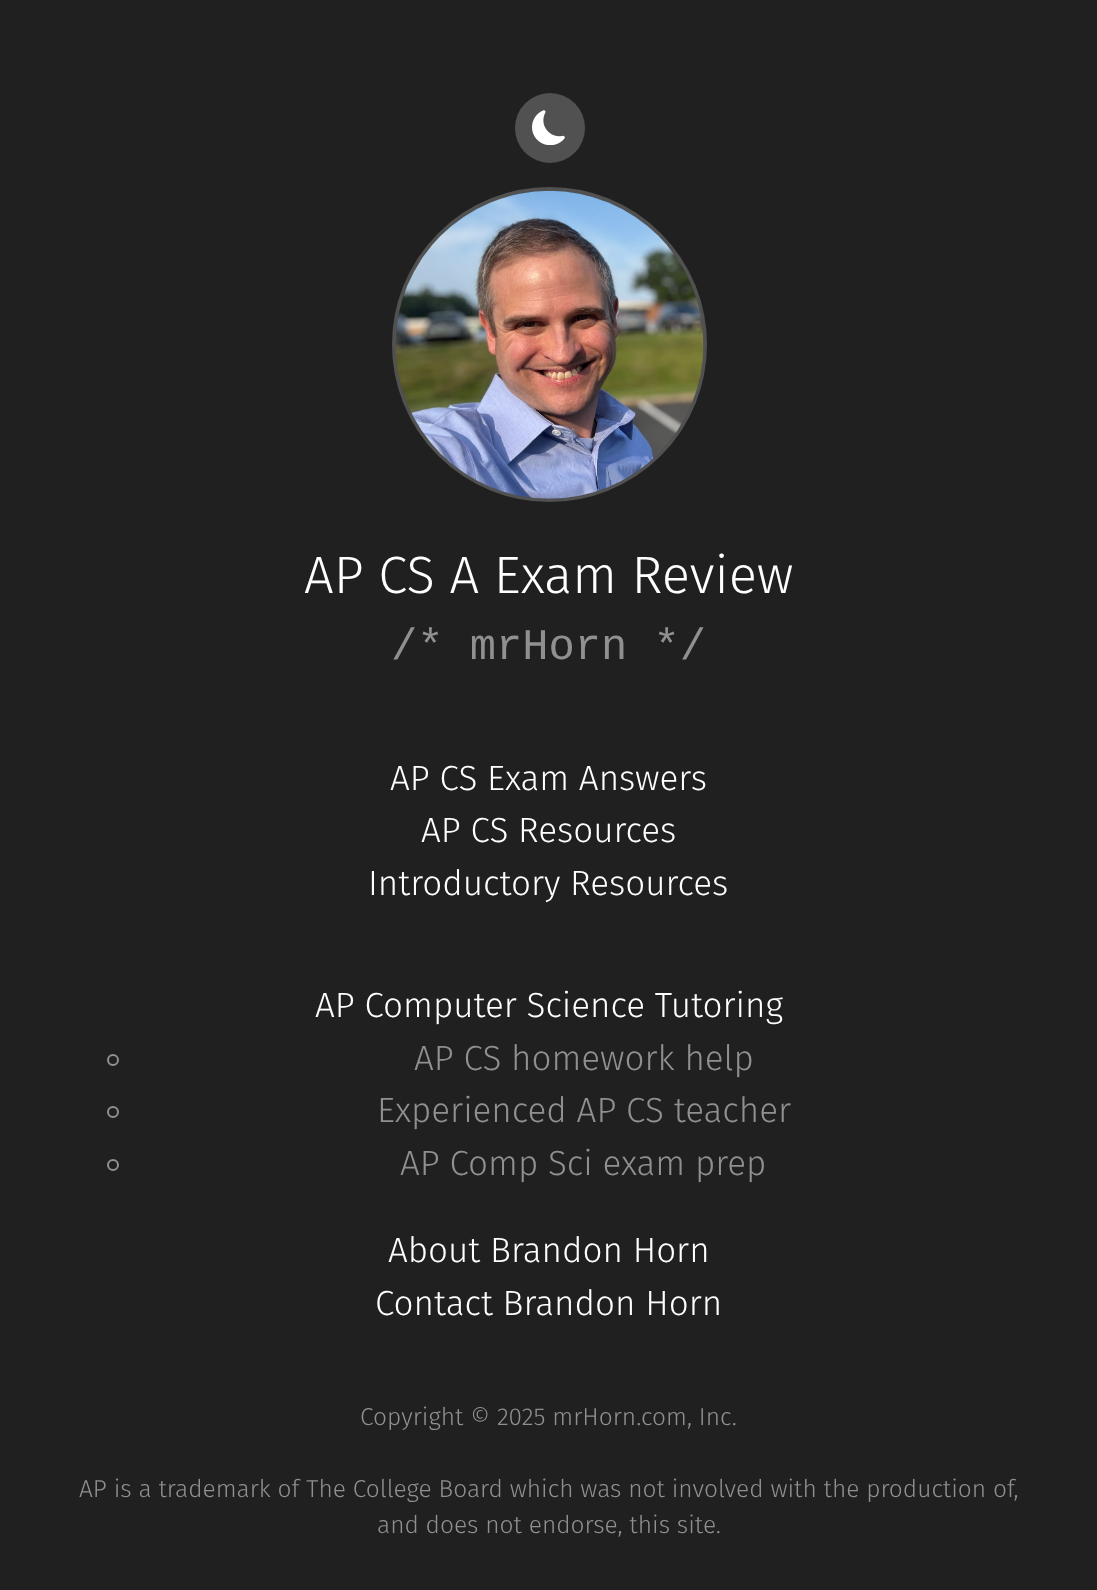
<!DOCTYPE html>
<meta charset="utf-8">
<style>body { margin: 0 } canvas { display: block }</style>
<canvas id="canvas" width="1097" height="1590"></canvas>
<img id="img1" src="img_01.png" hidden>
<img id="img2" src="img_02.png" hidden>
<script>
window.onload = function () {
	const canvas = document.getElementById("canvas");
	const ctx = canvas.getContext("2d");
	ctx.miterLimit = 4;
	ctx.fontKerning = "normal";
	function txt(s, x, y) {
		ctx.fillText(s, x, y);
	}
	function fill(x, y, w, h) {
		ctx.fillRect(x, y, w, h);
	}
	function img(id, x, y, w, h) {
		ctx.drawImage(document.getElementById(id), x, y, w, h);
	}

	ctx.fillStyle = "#202020";
	fill(0, 0, 1097, 1590);
	ctx.fillStyle = "#515151";
	ctx.beginPath();
	ctx.arc(550, 128, 35, 0, Math.PI * 2);
	ctx.fill();
	img("img1", 532, 110, 33, 35);
	ctx.beginPath();
	ctx.arc(549.5, 344.5, 155.5, 0, Math.PI * 2);
	ctx.strokeStyle = "#515151";
	ctx.lineWidth = 4;
	ctx.stroke();
	img("img2", 396, 190, 308, 309);
	ctx.beginPath();
	ctx.arc(113, 1060, 5, 0, Math.PI * 2);
	ctx.strokeStyle = "#909090";
	ctx.lineWidth = 2;
	ctx.stroke();
	ctx.beginPath();
	ctx.arc(113, 1112, 5, 0, Math.PI * 2);
	ctx.stroke();
	ctx.beginPath();
	ctx.arc(113, 1165, 5, 0, Math.PI * 2);
	ctx.stroke();
	ctx.font = "300 52.5px Fira Sans";
	ctx.fillStyle = "#FFFFFF";
	txt("AP CS A Exam Review", 304, 593);
	ctx.font = "43.75px Liberation Mono";
	ctx.fillStyle = "#909090";
	txt("/* mrHorn */", 391, 659);
	ctx.font = "300 35px Fira Sans";
	ctx.fillStyle = "#FFFFFF";
	txt("AP CS Exam Answers", 390, 790);
	txt("AP CS Resources", 421, 842);
	txt("Introductory Resources", 368, 895);
	txt("AP Computer Science Tutoring", 315, 1017);
	ctx.fillStyle = "#909090";
	txt("AP CS homework help", 414, 1070);
	txt("Experienced AP CS teacher", 377, 1122);
	txt("AP Comp Sci exam prep", 400, 1175);
	ctx.fillStyle = "#FFFFFF";
	txt("About Brandon Horn", 388, 1262);
	txt("Contact Brandon Horn", 375, 1315);
	ctx.font = "300 24.5px Fira Sans";
	ctx.fillStyle = "#909090";
	txt("Copyright © 2025 mrHorn.com, Inc.", 360, 1425);
	txt("AP is a trademark of The College Board which was not involved with the production of,", 79, 1497);
	txt("and does not endorse, this site.", 377, 1533);
};
</script>
